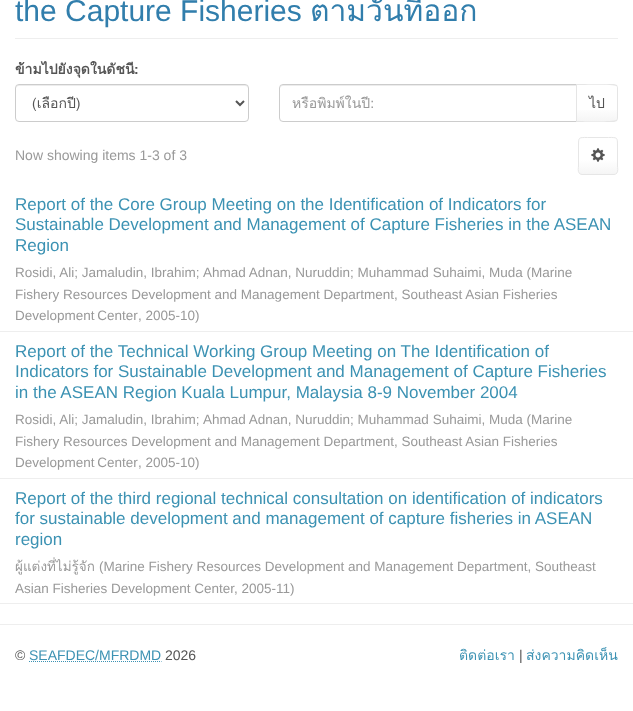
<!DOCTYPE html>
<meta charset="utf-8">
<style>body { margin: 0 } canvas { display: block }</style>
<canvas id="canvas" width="633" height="711"></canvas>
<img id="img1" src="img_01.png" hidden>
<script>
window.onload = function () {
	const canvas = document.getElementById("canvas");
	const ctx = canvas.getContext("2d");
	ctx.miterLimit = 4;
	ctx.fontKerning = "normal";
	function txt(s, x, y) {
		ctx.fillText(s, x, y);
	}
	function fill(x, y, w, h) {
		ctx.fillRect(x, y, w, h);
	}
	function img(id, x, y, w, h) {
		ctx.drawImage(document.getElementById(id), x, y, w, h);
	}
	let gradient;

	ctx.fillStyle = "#FFFFFF";
	fill(0, 0, 633, 711);
	ctx.fillStyle = "#EEEEEE";
	fill(15, 38, 603, 1);
	ctx.fillStyle = "#ECECEC";
	ctx.beginPath();
	ctx.moveTo(19, 86);
	ctx.lineTo(245, 86);
	ctx.bezierCurveTo(247, 86, 248, 87, 248, 89);
	ctx.bezierCurveTo(248, 87, 247, 85, 245, 85);
	ctx.lineTo(19, 85);
	ctx.bezierCurveTo(17, 85, 16, 87, 16, 89);
	ctx.bezierCurveTo(16, 87, 17, 86, 19, 86);
	ctx.closePath();
	ctx.fill();
	ctx.beginPath();
	ctx.roundRect(15.5, 84.5, 233, 37, 3.5);
	ctx.strokeStyle = "#CCCCCC";
	ctx.stroke();
	ctx.beginPath();
	ctx.moveTo(236, 101);
	ctx.lineTo(240, 105);
	ctx.lineTo(244, 101);
	ctx.strokeStyle = "#555555";
	ctx.lineWidth = 2;
	ctx.stroke();
	ctx.beginPath();
	ctx.moveTo(283, 86);
	ctx.lineTo(576, 86);
	ctx.lineTo(576, 85);
	ctx.lineTo(283, 85);
	ctx.bezierCurveTo(281, 85, 280, 87, 280, 89);
	ctx.bezierCurveTo(280, 87, 281, 86, 283, 86);
	ctx.closePath();
	ctx.fill();
	ctx.beginPath();
	ctx.roundRect(279.5, 84.5, 297, 37, [3.5, 0, 0, 3.5]);
	ctx.strokeStyle = "#CCCCCC";
	ctx.lineWidth = 1;
	ctx.stroke();
	ctx.fillStyle = "#FFFFFF";
	ctx.beginPath();
	ctx.roundRect(576, 84, 42, 38, [0, 4, 4, 0]);
	ctx.fill();
	gradient = ctx.createLinearGradient(597, 85, 597, 121);
	gradient.addColorStop(0, "#FFFFFF");
	gradient.addColorStop(0.6, "#FFFFFF");
	gradient.addColorStop(1, "#F5F5F5");
	ctx.fillStyle = gradient;
	fill(577, 110, 40, 11);
	ctx.fillStyle = "#E6E6E6";
	ctx.beginPath();
	ctx.moveTo(576, 84);
	ctx.lineTo(577, 85);
	ctx.bezierCurveTo(582, 85, 614, 84, 616, 86);
	ctx.lineTo(617, 85);
	ctx.lineTo(614, 84);
	ctx.closePath();
	ctx.fill();
	ctx.fillStyle = "rgba(0, 0, 0, 0.1)";
	ctx.beginPath();
	ctx.moveTo(618, 118);
	ctx.lineTo(618, 88);
	ctx.bezierCurveTo(618, 87, 617.5, 86, 617, 85);
	ctx.lineTo(616, 86);
	ctx.bezierCurveTo(617, 86, 617, 87, 617, 88);
	ctx.lineTo(617, 118);
	ctx.bezierCurveTo(617, 119, 617, 120, 616, 120);
	ctx.lineTo(617, 121);
	ctx.bezierCurveTo(617.5, 120, 618, 119, 618, 118);
	ctx.closePath();
	ctx.fill();
	ctx.fillStyle = "#E6E6E6";
	ctx.beginPath();
	ctx.moveTo(614, 122);
	ctx.lineTo(617, 121);
	ctx.lineTo(616, 120);
	ctx.bezierCurveTo(614, 122, 582, 121, 577, 121);
	ctx.lineTo(576, 122);
	ctx.closePath();
	ctx.fill();
	ctx.fillStyle = "rgba(0, 0, 0, 0.1)";
	ctx.beginPath();
	ctx.moveTo(576, 84);
	ctx.lineTo(576, 122);
	ctx.lineTo(577, 121);
	ctx.lineTo(577, 85);
	ctx.closePath();
	ctx.fill();
	ctx.save();
	ctx.beginPath();
	ctx.roundRect(578, 137, 40, 38, 4);
	ctx.clip();
	gradient = ctx.createLinearGradient(598, 138, 598, 174);
	gradient.addColorStop(0, "#FFFFFF");
	gradient.addColorStop(0.6, "#FFFFFF");
	gradient.addColorStop(1, "#F5F5F5");
	ctx.fillStyle = gradient;
	fill(579, 138, 38, 36);
	ctx.restore();
	ctx.beginPath();
	ctx.moveTo(616.5, 173.5);
	ctx.bezierCurveTo(616, 174, 615, 174.5, 614, 174.5);
	ctx.lineTo(582, 174.5);
	ctx.bezierCurveTo(581, 174.5, 580, 174, 579.5, 173.5);
	ctx.moveTo(579.5, 173.5);
	ctx.bezierCurveTo(577.5, 171.5, 578.5, 168, 578.5, 166);
	ctx.lineTo(578.5, 146);
	ctx.bezierCurveTo(578.5, 137, 578.5, 137.5, 587.5, 137.5);
	ctx.lineTo(608.5, 137.5);
	ctx.bezierCurveTo(617.5, 137.5, 617.5, 137, 617.5, 146);
	ctx.lineTo(617.5, 166);
	ctx.bezierCurveTo(617.5, 168, 618.5, 171.5, 616.5, 173.5);
	ctx.strokeStyle = "#E6E6E6";
	ctx.stroke();
	img("img1", 591, 148, 14, 14);
	ctx.fillStyle = "#EEEEEE";
	fill(0, 331, 633, 1);
	fill(0, 478, 633, 1);
	fill(0, 603, 633, 1);
	fill(0, 624, 633, 1);
	ctx.beginPath();
	ctx.moveTo(29, 661.5);
	ctx.lineTo(161.5, 661.5);
	ctx.strokeStyle = "#3C92B3";
	ctx.setLineDash([1, 1]);
	ctx.stroke();
	ctx.font = "30px Liberation Sans";
	ctx.fillStyle = "#317EAC";
	txt("the Capture Fisheries", 15, 21);
	ctx.font = "30px Loma";
	txt("ตามวันที่ออก", 310, 21);
	ctx.font = "bold 14px Loma";
	ctx.fillStyle = "#555555";
	txt("ข้ามไปยังจุดในดัชนี", 15, 74);
	ctx.font = "bold 14px Liberation Sans";
	txt(":", 134, 74);
	ctx.font = "14px Loma";
	txt("(เลือกปี)", 32, 108);
	ctx.fillStyle = "#999999";
	txt("หรือพิมพ์ในปี:", 292, 108);
	ctx.fillStyle = "#555555";
	txt("ไป", 589, 108);
	ctx.font = "14px Liberation Sans";
	ctx.fillStyle = "#999999";
	txt("Now showing items 1-3 of 3", 15, 160);
	ctx.font = "17px Liberation Sans";
	ctx.fillStyle = "#3C92B3";
	txt("Report of the Core Group Meeting on the Identification of Indicators for", 15, 210);
	txt("Sustainable Development and Management of Capture Fisheries in the ASEAN", 15, 230);
	txt("Region", 15, 251);
	ctx.font = "13.5px Liberation Sans";
	ctx.fillStyle = "#999999";
	txt("Rosidi, Ali; Jamaludin, Ibrahim;", 15, 277);
	txt("Ahmad Adnan, Nuruddin; Muhammad Suhaimi, Muda (Marine", 203, 277);
	txt("Fishery Resources Development and Management Department, Southeast Asian Fisheries", 15, 299);
	ctx.wordSpacing = "-1px";
	txt("Development Center", 15, 320);
	ctx.wordSpacing = "0px";
	txt(", 2005-10)", 138, 320);
	ctx.font = "17px Liberation Sans";
	ctx.fillStyle = "#3C92B3";
	txt("Report of the Technical Working Group Meeting on The Identification of", 15, 357);
	txt("Indicators for Sustainable Development and Management of Capture Fisheries", 15, 377);
	txt("in the ASEAN Region Kuala Lumpur, Malaysia 8-9 November 2004", 15, 398);
	ctx.font = "13.5px Liberation Sans";
	ctx.fillStyle = "#999999";
	txt("Rosidi, Ali; Jamaludin, Ibrahim;", 15, 424);
	txt("Ahmad Adnan, Nuruddin; Muhammad Suhaimi, Muda (Marine", 203, 424);
	txt("Fishery Resources Development and Management Department, Southeast Asian Fisheries", 15, 446);
	ctx.wordSpacing = "-1px";
	txt("Development Center", 15, 467);
	ctx.wordSpacing = "0px";
	txt(", 2005-10)", 138, 467);
	ctx.font = "17px Liberation Sans";
	ctx.fillStyle = "#3C92B3";
	txt("Report of the third regional technical consultation on identification of indicators", 15, 504);
	txt("for sustainable development and management of capture fisheries in ASEAN", 15, 524);
	txt("region", 15, 545);
	ctx.font = "13.5px Loma";
	ctx.fillStyle = "#999999";
	txt("ผู้แต่งที่ไม่รู้จัก", 15, 571);
	ctx.font = "13.5px Liberation Sans";
	txt("(Marine Fishery Resources Development and Management Department, Southeast", 99, 571);
	txt("Asian Fisheries Development Center", 15, 593);
	txt(", 2005-11)", 234, 593);
	ctx.font = "14px Liberation Sans";
	ctx.fillStyle = "#555555";
	txt("©", 15, 660);
	ctx.fillStyle = "#3C92B3";
	txt("SEAFDEC/MFRDMD", 29, 660);
	ctx.fillStyle = "#555555";
	txt("2026", 165, 660);
	ctx.font = "14px Loma";
	ctx.fillStyle = "#3C92B3";
	txt("ติดต่อเรา", 459, 660);
	ctx.font = "14px Liberation Sans";
	ctx.fillStyle = "#555555";
	txt("|", 519, 660);
	ctx.font = "14px Loma";
	ctx.fillStyle = "#3C92B3";
	txt("ส่งความคิดเห็น", 526, 660);
};
</script>
